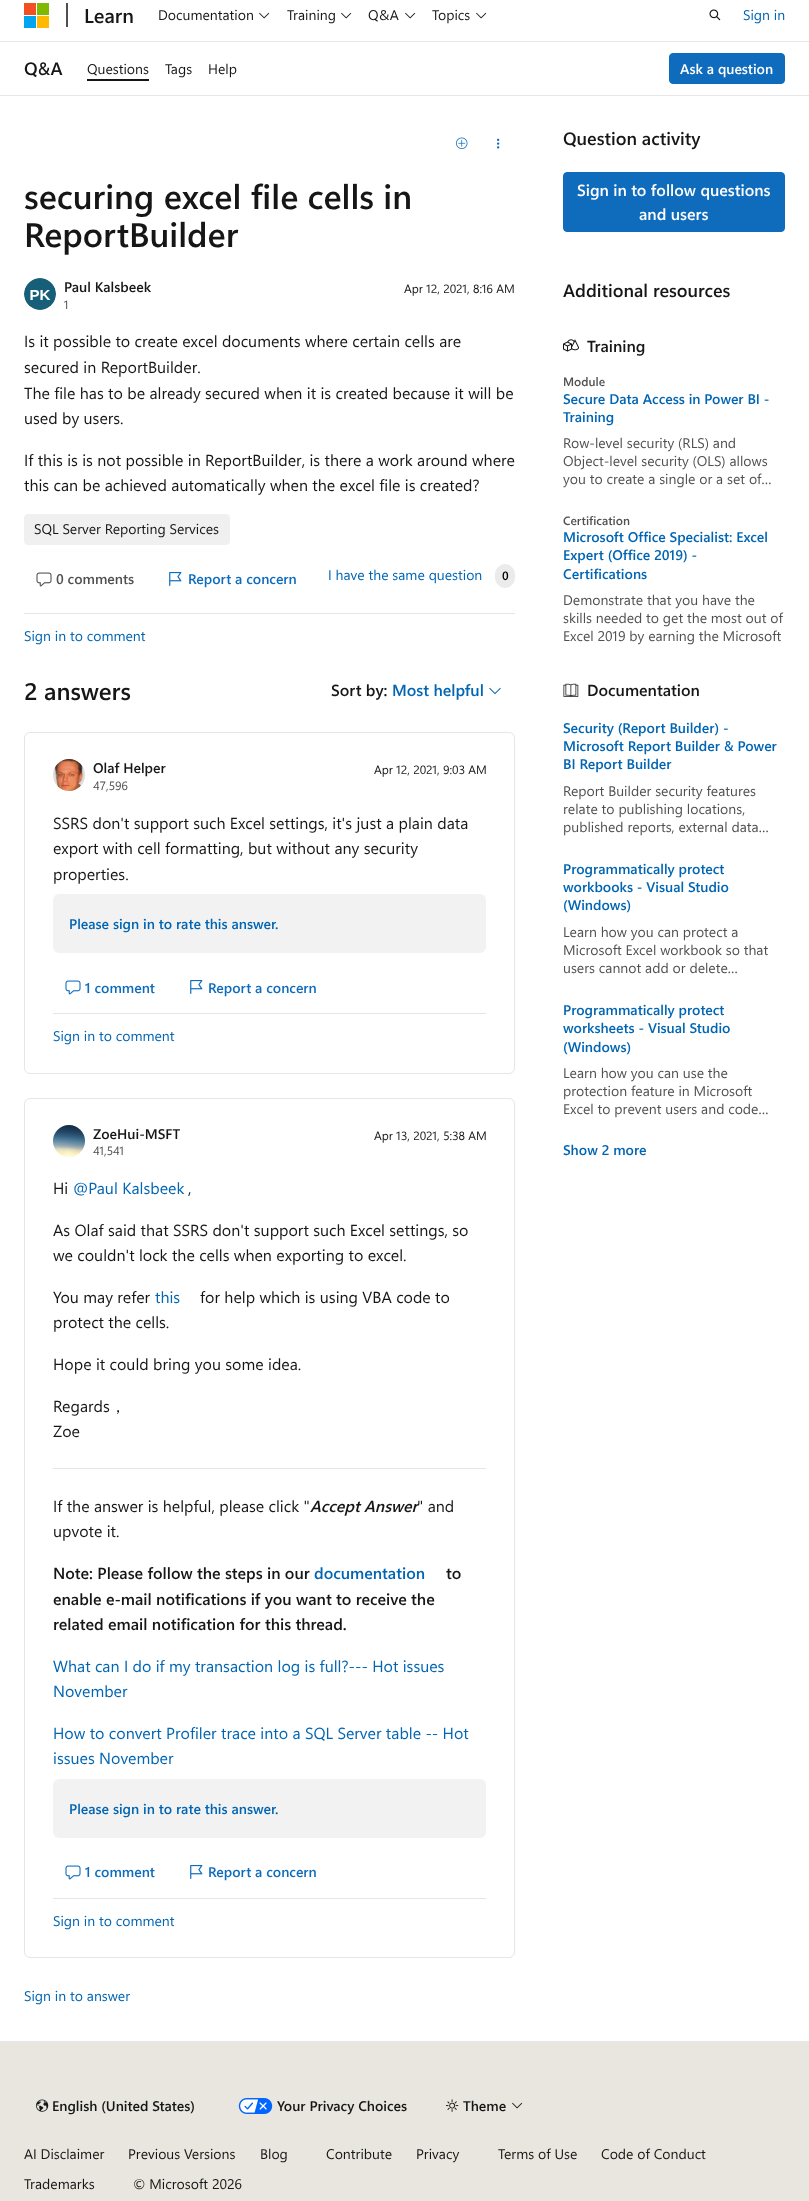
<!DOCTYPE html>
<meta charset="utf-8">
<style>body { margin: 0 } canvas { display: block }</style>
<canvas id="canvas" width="809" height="2201"></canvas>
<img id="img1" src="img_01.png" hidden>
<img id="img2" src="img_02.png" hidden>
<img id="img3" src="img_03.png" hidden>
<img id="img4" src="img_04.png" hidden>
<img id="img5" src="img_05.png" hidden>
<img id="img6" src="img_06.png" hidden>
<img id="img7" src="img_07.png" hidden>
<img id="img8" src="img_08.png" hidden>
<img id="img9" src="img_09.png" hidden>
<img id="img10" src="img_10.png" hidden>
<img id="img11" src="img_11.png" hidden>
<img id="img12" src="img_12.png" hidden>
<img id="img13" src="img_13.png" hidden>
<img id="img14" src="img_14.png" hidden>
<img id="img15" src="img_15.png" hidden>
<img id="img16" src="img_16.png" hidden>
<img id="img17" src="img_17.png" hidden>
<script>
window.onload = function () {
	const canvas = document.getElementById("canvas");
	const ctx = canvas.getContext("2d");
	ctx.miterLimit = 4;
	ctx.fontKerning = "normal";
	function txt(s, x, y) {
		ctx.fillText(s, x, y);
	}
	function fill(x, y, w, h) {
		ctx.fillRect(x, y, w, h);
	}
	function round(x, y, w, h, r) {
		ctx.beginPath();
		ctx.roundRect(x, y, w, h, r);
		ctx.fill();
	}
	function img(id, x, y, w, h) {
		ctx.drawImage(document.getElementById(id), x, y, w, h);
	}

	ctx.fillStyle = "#FFFFFF";
	fill(0, 0, 809, 2201);
	ctx.fillStyle = "#E6E6E6";
	fill(0, 41, 809, 1);
	ctx.fillStyle = "#F25022";
	fill(24, 3, 12, 12);
	ctx.fillStyle = "#7FBA00";
	fill(37, 3, 12, 12);
	ctx.fillStyle = "#00A4EF";
	fill(24, 16, 12, 12);
	ctx.fillStyle = "#FFB900";
	fill(37, 16, 12, 12);
	ctx.fillStyle = "#505050";
	fill(66, 3, 2, 24);
	img("img1", 259, 12, 11, 7);
	img("img1", 341, 12, 11, 7);
	img("img1", 405, 12, 11, 7);
	img("img1", 476, 12, 11, 7);
	img("img2", 709, 9, 12, 12);
	ctx.fillStyle = "#E6E6E6";
	fill(0, 95, 809, 1);
	ctx.fillStyle = "#161616";
	fill(87, 79, 62, 2);
	ctx.fillStyle = "#0F6CBD";
	ctx.beginPath();
	ctx.roundRect(669.5, 53.5, 115, 30, 3.5);
	ctx.fill();
	ctx.strokeStyle = "#0F6CBD";
	ctx.stroke();
	img("img3", 456, 137, 12, 12);
	img("img4", 497, 138, 3, 11);
	ctx.fillStyle = "#F2F2F2";
	ctx.beginPath();
	ctx.arc(40, 294, 16, 0, Math.PI * 2);
	ctx.fill();
	img("img5", 24, 278, 32, 32);
	ctx.fillStyle = "#F0F0F0";
	ctx.beginPath();
	ctx.roundRect(24.5, 514.5, 205, 30, 3.5);
	ctx.fill();
	ctx.strokeStyle = "#F0F0F0";
	ctx.stroke();
	img("img6", 36, 572, 16, 15);
	img("img7", 169, 572, 13, 14);
	ctx.fillStyle = "#EBEBEB";
	ctx.beginPath();
	ctx.roundRect(495.5, 564.5, 19, 23, 9.5);
	ctx.fill();
	ctx.strokeStyle = "#EBEBEB";
	ctx.stroke();
	ctx.fillStyle = "#E6E6E6";
	fill(24, 613, 491, 1);
	img("img8", 489, 687, 12, 8);
	ctx.beginPath();
	ctx.roundRect(24.5, 732.5, 490, 341, 5.5);
	ctx.strokeStyle = "#E6E6E6";
	ctx.stroke();
	ctx.fillStyle = "#F2F2F2";
	ctx.beginPath();
	ctx.arc(69, 775, 16, 0, Math.PI * 2);
	ctx.fill();
	img("img9", 53, 759, 32, 32);
	round(53, 894, 433, 59, 6);
	img("img10", 65, 980, 16, 15);
	img("img7", 190, 980, 13, 14);
	ctx.fillStyle = "#E6E6E6";
	fill(53, 1013, 433, 1);
	ctx.beginPath();
	ctx.roundRect(24.5, 1098.5, 490, 859, 5.5);
	ctx.stroke();
	ctx.fillStyle = "#F2F2F2";
	ctx.beginPath();
	ctx.arc(69, 1141, 16, 0, Math.PI * 2);
	ctx.fill();
	img("img11", 53, 1125, 32, 32);
	ctx.fillStyle = "#E6E6E6";
	fill(53, 1468, 433, 1);
	ctx.fillStyle = "#F2F2F2";
	round(53, 1779, 433, 59, 6);
	img("img10", 65, 1865, 16, 15);
	img("img7", 190, 1865, 13, 14);
	ctx.fillStyle = "#E6E6E6";
	fill(53, 1898, 433, 1);
	ctx.fillStyle = "#0F6CBD";
	ctx.beginPath();
	ctx.roundRect(563.5, 172.5, 221, 59, 3.5);
	ctx.fill();
	ctx.strokeStyle = "#0F6CBD";
	ctx.stroke();
	img("img12", 563, 339, 16, 13);
	img("img13", 563, 683, 16, 14);
	ctx.fillStyle = "#E8E6DF";
	fill(0, 2042, 809, 159);
	ctx.fillStyle = "#E6E6E6";
	fill(0, 2041, 809, 1);
	img("img14", 36, 2099, 13, 13);
	img("img15", 238, 2098, 35, 16);
	img("img16", 446, 2099, 13, 13);
	img("img17", 512, 2102, 11, 7);
	ctx.font = "600 20px Segoe UI";
	ctx.fillStyle = "#161616";
	txt("Learn", 84, 23);
	ctx.font = "14px Segoe UI";
	txt("Documentation", 158, 20);
	txt("Training", 287, 20);
	txt("Q&A", 368, 20);
	txt("Topics", 432, 20);
	ctx.fillStyle = "#0065B3";
	txt("Sign in", 743, 20);
	ctx.font = "600 18px Segoe UI";
	ctx.fillStyle = "#161616";
	txt("Q&A", 24, 75);
	ctx.font = "14px Segoe UI";
	txt("Questions", 87, 74);
	txt("Tags", 165, 74);
	txt("Help", 208, 74);
	ctx.font = "600 14px Segoe UI";
	ctx.fillStyle = "#FFFFFF";
	txt("Ask a question", 680, 74);
	ctx.font = "600 34px Segoe UI";
	ctx.fillStyle = "#161616";
	txt("securing excel file cells in", 24, 209);
	txt("ReportBuilder", 24, 247);
	ctx.font = "600 14px Segoe UI";
	txt("Paul Kalsbeek", 64, 292);
	ctx.font = "12px Segoe UI";
	ctx.fillStyle = "#505050";
	txt("1", 64, 309);
	ctx.fillStyle = "#161616";
	txt("Apr 12, 2021, 8:16 AM", 404, 293);
	ctx.font = "16px Segoe UI";
	txt("Is it possible to create excel documents where certain cells are", 24, 347);
	txt("secured in ReportBuilder.", 24, 373);
	txt("The file has to be already secured when it is created because it will be", 24, 399);
	txt("used by users.", 24, 424);
	txt("If this is is not possible in ReportBuilder, is there a work around where", 24, 466);
	txt("this can be achieved automatically when the excel file is created?", 24, 491);
	ctx.font = "14px Segoe UI";
	txt("SQL Server Reporting Services", 34, 534);
	ctx.font = "600 14px Segoe UI";
	ctx.fillStyle = "#505050";
	txt("0 comments", 56, 584);
	ctx.fillStyle = "#0F6CBD";
	txt("Report a concern", 188, 584);
	ctx.font = "14px Segoe UI";
	ctx.fillStyle = "#0065B3";
	txt("I have the same question", 328, 580);
	ctx.font = "600 12px Segoe UI";
	ctx.fillStyle = "#000000";
	txt("0", 502, 580);
	ctx.font = "14px Segoe UI";
	ctx.fillStyle = "#0065B3";
	txt("Sign in to comment", 24, 641);
	ctx.font = "600 24px Segoe UI";
	ctx.fillStyle = "#161616";
	txt("2 answers", 24, 700);
	ctx.font = "600 16px Segoe UI";
	txt("Sort by:", 331, 696);
	ctx.fillStyle = "#0065B3";
	txt("Most helpful", 392, 696);
	ctx.font = "600 14px Segoe UI";
	ctx.fillStyle = "#161616";
	txt("Olaf Helper", 93, 773);
	ctx.font = "12px Segoe UI";
	ctx.fillStyle = "#505050";
	txt("47,596", 93, 790);
	ctx.fillStyle = "#161616";
	txt("Apr 12, 2021, 9:03 AM", 374, 774);
	ctx.font = "16px Segoe UI";
	txt("SSRS don't support such Excel settings, it's just a plain data", 53, 829);
	txt("export with cell formatting, but without any security", 53, 854);
	txt("properties.", 53, 880);
	ctx.font = "600 14px Segoe UI";
	ctx.fillStyle = "#0065B3";
	txt("Please sign in to rate this answer.", 69, 929);
	ctx.fillStyle = "#0F6CBD";
	txt("1 comment", 85, 993);
	txt("Report a concern", 208, 993);
	ctx.font = "14px Segoe UI";
	ctx.fillStyle = "#0065B3";
	txt("Sign in to comment", 53, 1041);
	ctx.font = "600 14px Segoe UI";
	ctx.fillStyle = "#161616";
	txt("ZoeHui-MSFT", 93, 1139);
	ctx.font = "12px Segoe UI";
	ctx.fillStyle = "#505050";
	txt("41,541", 93, 1155);
	ctx.fillStyle = "#161616";
	txt("Apr 13, 2021, 5:38 AM", 374, 1140);
	ctx.font = "16px Segoe UI";
	txt("Hi", 53, 1194);
	ctx.fillStyle = "#0065B3";
	txt("@Paul Kalsbeek", 73, 1194);
	ctx.fillStyle = "#161616";
	txt(",", 188, 1194);
	txt("As Olaf said that SSRS don't support such Excel settings, so", 53, 1236);
	txt("we couldn't lock the cells when exporting to excel.", 53, 1261);
	txt("You may refer", 53, 1303);
	ctx.fillStyle = "#0065B3";
	txt("this", 155, 1303);
	ctx.fillStyle = "#161616";
	txt("for help which is using VBA code to", 200, 1303);
	txt("protect the cells.", 53, 1328);
	txt("Hope it could bring you some idea.", 53, 1370);
	txt("Regards", 53, 1412);
	ctx.font = "500 16px WenQuanYi Zen Hei";
	txt("，", 110, 1412);
	ctx.font = "16px Segoe UI";
	txt("Zoe", 53, 1437);
	txt("If the answer is helpful, please click \"", 53, 1512);
	ctx.font = "italic 600 16px Segoe UI";
	txt("Accept Answer", 310, 1512);
	ctx.font = "16px Segoe UI";
	txt("\" and", 417, 1512);
	txt("upvote it.", 53, 1537);
	ctx.font = "600 16px Segoe UI";
	txt("Note: Please follow the steps in our", 53, 1579);
	ctx.fillStyle = "#0065B3";
	txt("documentation", 314, 1579);
	ctx.fillStyle = "#161616";
	txt("to", 446, 1579);
	txt("enable e-mail notifications if you want to receive the", 53, 1605);
	txt("related email notification for this thread.", 53, 1630);
	ctx.font = "16px Segoe UI";
	ctx.fillStyle = "#0065B3";
	txt("What can I do if my transaction log is full?--- Hot issues", 53, 1672);
	txt("November", 53, 1697);
	txt("How to convert Profiler trace into a SQL Server table -- Hot", 53, 1739);
	txt("issues November", 53, 1764);
	ctx.font = "600 14px Segoe UI";
	txt("Please sign in to rate this answer.", 69, 1814);
	ctx.fillStyle = "#0F6CBD";
	txt("1 comment", 85, 1877);
	txt("Report a concern", 208, 1877);
	ctx.font = "14px Segoe UI";
	ctx.fillStyle = "#0065B3";
	txt("Sign in to comment", 53, 1926);
	txt("Sign in to answer", 24, 2001);
	ctx.font = "600 18px Segoe UI";
	ctx.fillStyle = "#161616";
	txt("Question activity", 563, 145);
	ctx.font = "600 16px Segoe UI";
	ctx.fillStyle = "#FFFFFF";
	txt("Sign in to follow questions", 577, 196);
	txt("and users", 639, 220);
	ctx.font = "600 18px Segoe UI";
	ctx.fillStyle = "#161616";
	txt("Additional resources", 563, 297);
	ctx.font = "600 16px Segoe UI";
	txt("Training", 587, 352);
	ctx.font = "600 12px Segoe UI";
	ctx.fillStyle = "#505050";
	txt("Module", 563, 386);
	ctx.font = "600 14px Segoe UI";
	ctx.fillStyle = "#0065B3";
	txt("Secure Data Access in Power BI -", 563, 404);
	txt("Training", 563, 422);
	ctx.font = "14px Segoe UI";
	ctx.fillStyle = "#505050";
	txt("Row-level security (RLS) and", 563, 448);
	txt("Object-level security (OLS) allows", 563, 466);
	txt("you to create a single or a set of…", 563, 484);
	ctx.font = "600 12px Segoe UI";
	txt("Certification", 563, 525);
	ctx.font = "600 14px Segoe UI";
	ctx.fillStyle = "#0065B3";
	txt("Microsoft Office Specialist: Excel", 563, 542);
	txt("Expert (Office 2019) -", 563, 560);
	txt("Certifications", 563, 579);
	ctx.font = "14px Segoe UI";
	ctx.fillStyle = "#505050";
	txt("Demonstrate that you have the", 563, 605);
	txt("skills needed to get the most out of", 563, 623);
	txt("Excel 2019 by earning the Microsoft", 563, 641);
	ctx.font = "600 16px Segoe UI";
	ctx.fillStyle = "#161616";
	txt("Documentation", 587, 696);
	ctx.font = "600 14px Segoe UI";
	ctx.fillStyle = "#0065B3";
	txt("Security (Report Builder) -", 563, 733);
	txt("Microsoft Report Builder & Power", 563, 751);
	txt("BI Report Builder", 563, 769);
	ctx.font = "14px Segoe UI";
	ctx.fillStyle = "#505050";
	txt("Report Builder security features", 563, 796);
	txt("relate to publishing locations,", 563, 814);
	txt("published reports, external data…", 563, 832);
	ctx.font = "600 14px Segoe UI";
	ctx.fillStyle = "#0065B3";
	txt("Programmatically protect", 563, 874);
	txt("workbooks - Visual Studio", 563, 892);
	txt("(Windows)", 563, 910);
	ctx.font = "14px Segoe UI";
	ctx.fillStyle = "#505050";
	txt("Learn how you can protect a", 563, 937);
	txt("Microsoft Excel workbook so that", 563, 955);
	txt("users cannot add or delete…", 563, 973);
	ctx.font = "600 14px Segoe UI";
	ctx.fillStyle = "#0065B3";
	txt("Programmatically protect", 563, 1015);
	txt("worksheets - Visual Studio", 563, 1033);
	txt("(Windows)", 563, 1052);
	ctx.font = "14px Segoe UI";
	ctx.fillStyle = "#505050";
	txt("Learn how you can use the", 563, 1078);
	txt("protection feature in Microsoft", 563, 1096);
	txt("Excel to prevent users and code…", 563, 1114);
	ctx.font = "600 14px Segoe UI";
	ctx.fillStyle = "#0065B3";
	txt("Show 2 more", 563, 1155);
	ctx.fillStyle = "#161616";
	txt("English (United States)", 52, 2111);
	txt("Your Privacy Choices", 277, 2111);
	txt("Theme", 463, 2111);
	ctx.font = "14px Segoe UI";
	txt("AI Disclaimer", 24, 2159);
	txt("Previous Versions", 128, 2159);
	txt("Blog", 260, 2159);
	txt("Contribute", 326, 2159);
	txt("Privacy", 416, 2159);
	txt("Terms of Use", 498, 2159);
	txt("Code of Conduct", 601, 2159);
	txt("Trademarks", 24, 2189);
	txt("© Microsoft 2026", 133, 2189);
};
</script>
